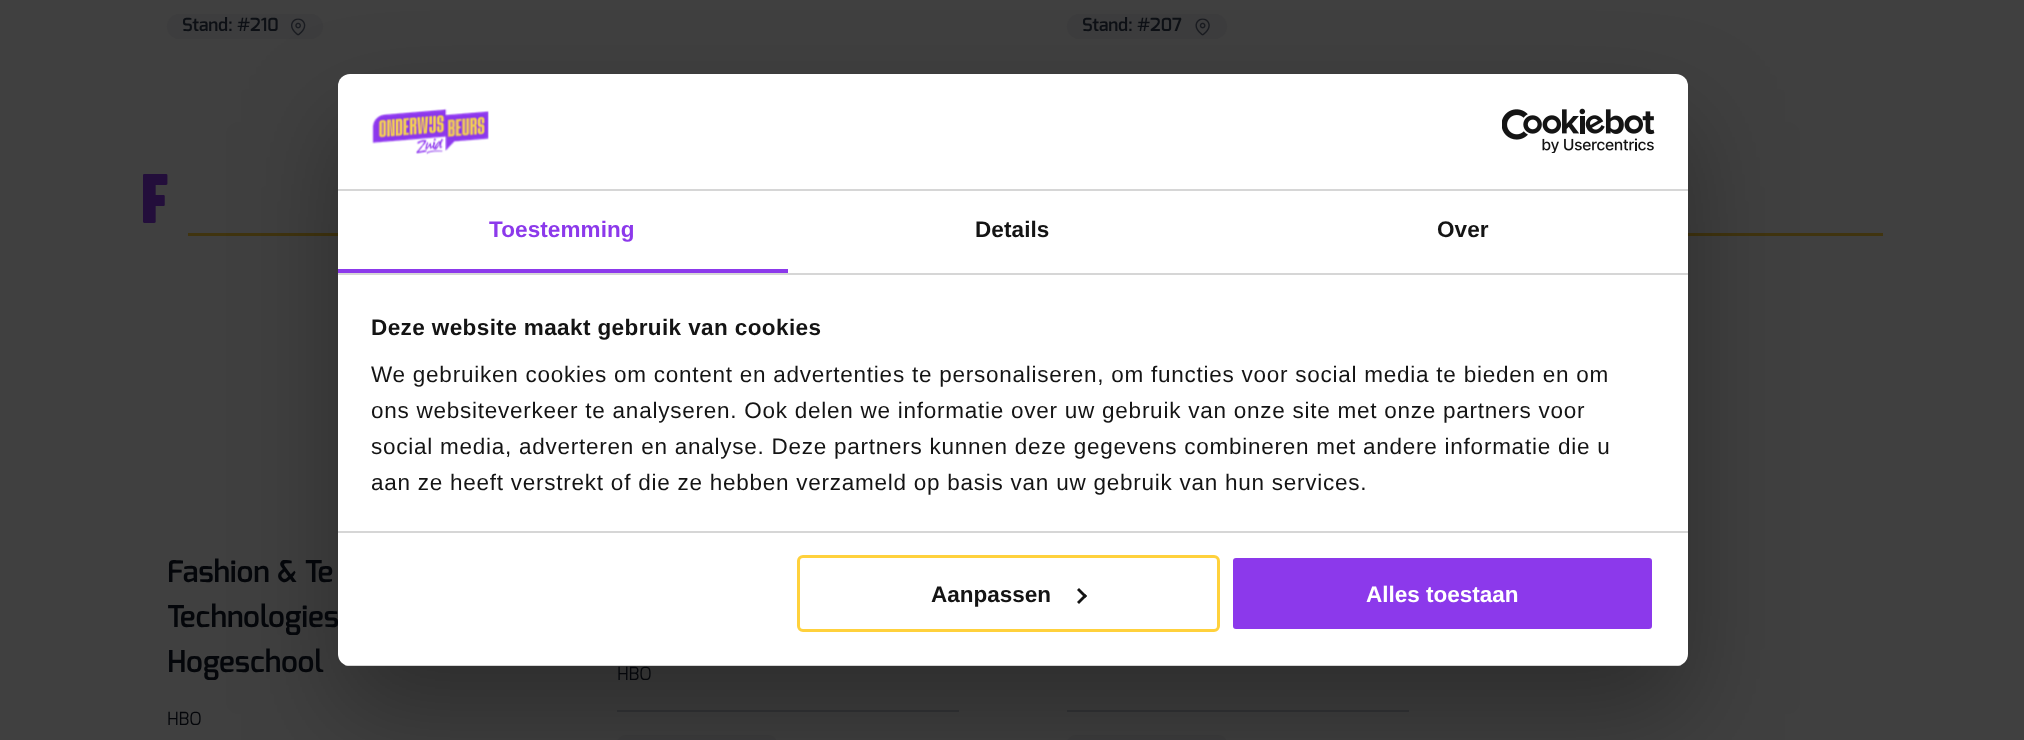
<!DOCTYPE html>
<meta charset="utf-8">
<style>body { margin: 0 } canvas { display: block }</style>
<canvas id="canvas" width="2024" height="740"></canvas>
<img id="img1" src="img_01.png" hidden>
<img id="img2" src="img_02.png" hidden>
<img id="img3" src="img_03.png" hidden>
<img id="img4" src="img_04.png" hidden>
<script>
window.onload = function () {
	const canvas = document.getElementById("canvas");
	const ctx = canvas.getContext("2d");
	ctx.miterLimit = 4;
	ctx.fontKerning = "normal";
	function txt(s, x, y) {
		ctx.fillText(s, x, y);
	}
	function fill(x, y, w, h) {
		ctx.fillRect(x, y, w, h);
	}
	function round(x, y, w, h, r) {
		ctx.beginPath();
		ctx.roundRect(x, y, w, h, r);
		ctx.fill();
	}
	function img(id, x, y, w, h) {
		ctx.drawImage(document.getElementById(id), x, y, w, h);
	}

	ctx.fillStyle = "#404040";
	fill(0, 0, 2024, 740);
	ctx.fillStyle = "#3D3D3E";
	round(167, 14, 156, 25, 12.5);
	img("img1", 291, 18, 15, 18);
	round(1067, 14, 160, 25, 12.5);
	img("img2", 1195, 18, 15, 18);
	ctx.fillStyle = "#40340F";
	fill(188, 233, 1695, 3);
	ctx.fillStyle = "#343537";
	fill(617, 710, 342, 2);
	ctx.fillStyle = "#3D3D3E";
	round(617, 735, 160, 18, 13);
	ctx.fillStyle = "#343537";
	fill(1067, 710, 342, 2);
	ctx.fillStyle = "#3D3D3E";
	round(1067, 735, 160, 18, 13);
	ctx.fillStyle = "rgba(0, 0, 0, 0.3)";
	ctx.filter = "blur(51px)";
	ctx.beginPath();
	ctx.roundRect(338, 122, 1350, 592, 12);
	ctx.fill();
	ctx.filter = "none";
	ctx.fillStyle = "#FFFFFF";
	round(338, 74, 1350, 592, 12);
	ctx.fillStyle = "#D6D6D6";
	fill(338, 189, 1350, 2);
	img("img3", 371, 108, 118, 47);
	img("img4", 1502, 108, 153, 45);
	fill(338, 273, 1350, 2);
	ctx.fillStyle = "#8C39EB";
	fill(338, 269, 450, 4);
	ctx.fillStyle = "#D6D6D6";
	fill(338, 531, 1350, 2);
	ctx.save();
	ctx.beginPath();
	ctx.roundRect(338, 74, 1350, 592, 12);
	ctx.clip();
	fill(338, 665, 1350, 1);
	ctx.restore();
	ctx.beginPath();
	ctx.roundRect(798.5, 556.5, 420, 74, 4.5);
	ctx.strokeStyle = "#FFD13C";
	ctx.lineWidth = 3;
	ctx.stroke();
	ctx.fillStyle = "#141414";
	ctx.beginPath();
	ctx.moveTo(1079, 588);
	ctx.lineTo(1087, 596);
	ctx.lineTo(1085, 598);
	ctx.lineTo(1077, 590);
	ctx.closePath();
	ctx.fill();
	ctx.beginPath();
	ctx.moveTo(1085, 594);
	ctx.lineTo(1087, 596);
	ctx.lineTo(1079, 604);
	ctx.lineTo(1077, 602);
	ctx.closePath();
	ctx.fill();
	ctx.fillStyle = "#8C39EB";
	ctx.beginPath();
	ctx.roundRect(1231.5, 556.5, 422, 74, 4.5);
	ctx.fill();
	ctx.strokeStyle = "#FFFFFF";
	ctx.stroke();
	ctx.font = "600 18px Exo";
	ctx.fillStyle = "#0D1015";
	txt("Stand: #210", 182, 31);
	txt("Stand: #207", 1082, 31);
	ctx.font = "bold 72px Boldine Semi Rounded";
	ctx.fillStyle = "#230E3B";
	txt("F", 143, 223);
	ctx.font = "600 30px Exo";
	ctx.fillStyle = "#04060A";
	txt("Fashion & Te", 167, 582);
	txt("Technologies", 167, 627);
	txt("Hogeschool", 167, 672);
	ctx.font = "18px Exo";
	txt("HBO", 167, 725);
	txt("HBO", 617, 680);
	ctx.letterSpacing = "0.1px";
	ctx.font = "bold 22.5px Liberation Sans";
	ctx.fillStyle = "#8C39EB";
	txt("Toestemming", 489, 237);
	ctx.fillStyle = "#141414";
	txt("Details", 975, 237);
	txt("Over", 1437, 237);
	ctx.letterSpacing = "0.4px";
	txt("Deze website maakt gebruik van cookies", 371, 335);
	ctx.letterSpacing = "0.75px";
	ctx.font = "22.5px Liberation Sans";
	txt("We gebruiken cookies om content en advertenties te personaliseren, om functies voor social media te bieden en om", 371, 382);
	txt("ons websiteverkeer te analyseren. Ook delen we informatie over uw gebruik van onze site met onze partners voor", 371, 418);
	txt("social media, adverteren en analyse. Deze partners kunnen deze gegevens combineren met andere informatie die u", 371, 454);
	txt("aan ze heeft verstrekt of die ze hebben verzameld op basis van uw gebruik van hun services.", 371, 490);
	ctx.letterSpacing = "0px";
	ctx.font = "bold 22.5px Liberation Sans";
	txt("Aanpassen", 931, 602);
	ctx.fillStyle = "#FFFFFF";
	txt("Alles toestaan", 1366, 602);
};
</script>
